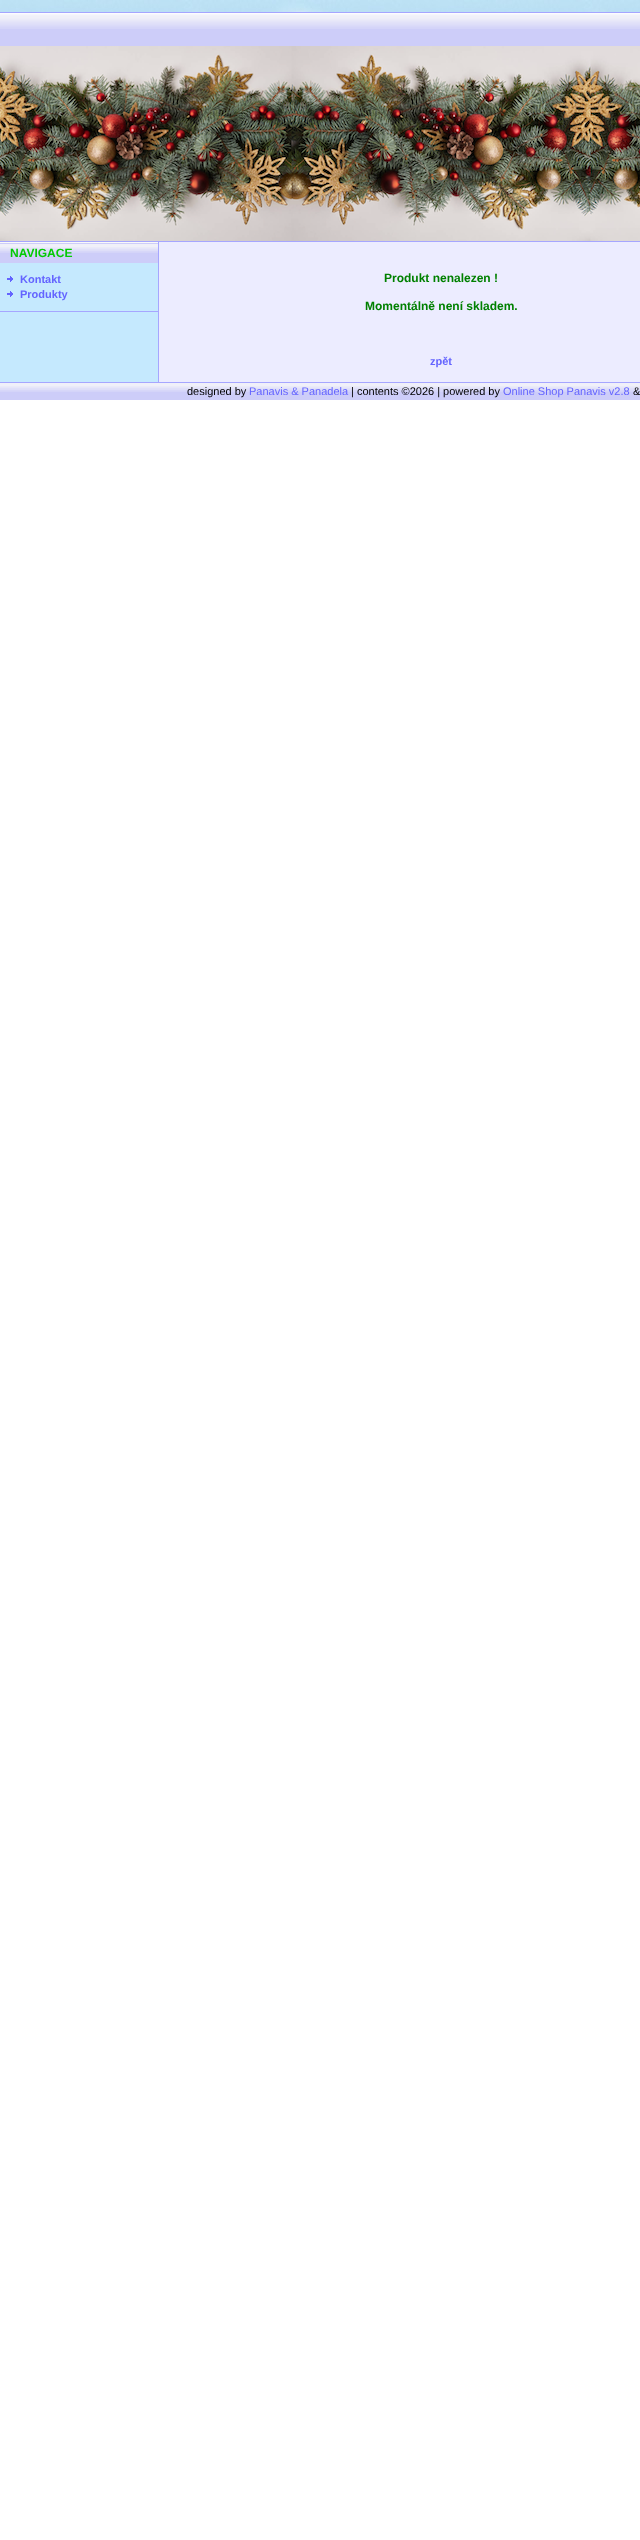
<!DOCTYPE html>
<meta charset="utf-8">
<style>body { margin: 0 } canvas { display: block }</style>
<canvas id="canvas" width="640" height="2540"></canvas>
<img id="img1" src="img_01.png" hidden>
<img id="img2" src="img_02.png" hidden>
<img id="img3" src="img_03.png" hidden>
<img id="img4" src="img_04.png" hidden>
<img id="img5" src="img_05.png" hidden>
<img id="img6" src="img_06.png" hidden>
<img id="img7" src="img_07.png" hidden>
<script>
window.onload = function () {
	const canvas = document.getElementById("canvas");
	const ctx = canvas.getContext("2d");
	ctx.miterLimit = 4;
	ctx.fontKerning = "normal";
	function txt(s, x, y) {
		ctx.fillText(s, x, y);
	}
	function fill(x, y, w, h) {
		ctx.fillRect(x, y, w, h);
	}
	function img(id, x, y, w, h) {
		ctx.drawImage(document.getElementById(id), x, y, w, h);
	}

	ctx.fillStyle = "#FFFFFF";
	fill(0, 0, 640, 2540);
	img("img1", 0, 0, 640, 12);
	ctx.fillStyle = "#CDCDF9";
	fill(0, 29, 640, 17);
	img("img2", 0, 12, 595, 17);
	img("img3", 595, 12, 45, 17);
	img("img4", 0, 46, 640, 195);
	ctx.fillStyle = "#A6A6FF";
	fill(0, 241, 640, 1);
	ctx.fillStyle = "#C5E9FE";
	fill(0, 263, 158, 119);
	ctx.fillStyle = "#CDCDF9";
	fill(0, 253, 158, 10);
	img("img5", 0, 242, 158, 11);
	img("img6", 7, 276, 6, 6);
	img("img6", 7, 291, 6, 6);
	ctx.fillStyle = "#A6A6FF";
	fill(0, 311, 158, 1);
	fill(158, 242, 1, 140);
	ctx.fillStyle = "#ECECFF";
	fill(159, 242, 481, 140);
	ctx.fillStyle = "#CDCDF9";
	fill(0, 392, 640, 8);
	img("img7", 0, 382, 640, 10);
	ctx.font = "bold 12px Liberation Sans";
	ctx.fillStyle = "#04CA04";
	txt("NAVIGACE", 10, 257);
	ctx.font = "bold 11px Liberation Sans";
	ctx.fillStyle = "#6464FF";
	txt("Kontakt", 20, 283);
	txt("Produkty", 20, 298);
	ctx.font = "bold 12px Liberation Sans";
	ctx.fillStyle = "#008000";
	txt("Produkt nenalezen !", 384, 282);
	txt("Momentálně není skladem.", 365, 310);
	ctx.font = "bold 11px Liberation Sans";
	ctx.fillStyle = "#6464FF";
	txt("zpět", 430, 365);
	ctx.font = "11px Liberation Sans";
	ctx.fillStyle = "#000000";
	txt("designed by", 187, 395);
	ctx.fillStyle = "#6464FF";
	txt("Panavis & Panadela", 249, 395);
	ctx.fillStyle = "#000000";
	txt("| contents ©2026 | powered by", 351, 395);
	ctx.fillStyle = "#6464FF";
	txt("Online Shop Panavis v2.8", 503, 395);
	ctx.fillStyle = "#000000";
	txt("&", 633, 395);
};
</script>
